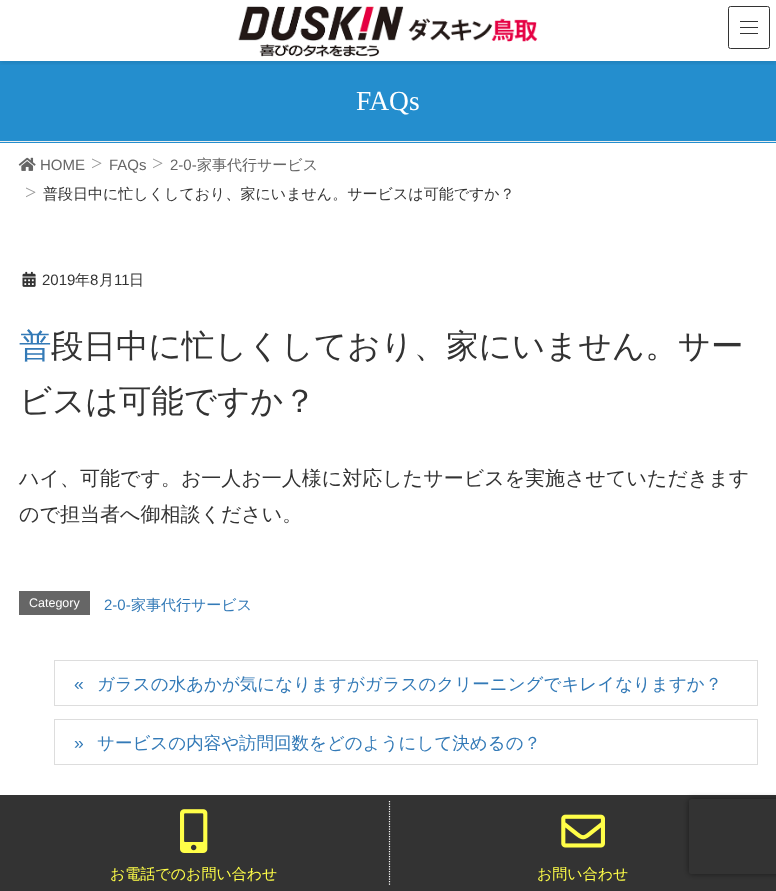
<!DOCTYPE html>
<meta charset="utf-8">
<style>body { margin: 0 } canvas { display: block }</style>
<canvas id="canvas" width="776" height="891"></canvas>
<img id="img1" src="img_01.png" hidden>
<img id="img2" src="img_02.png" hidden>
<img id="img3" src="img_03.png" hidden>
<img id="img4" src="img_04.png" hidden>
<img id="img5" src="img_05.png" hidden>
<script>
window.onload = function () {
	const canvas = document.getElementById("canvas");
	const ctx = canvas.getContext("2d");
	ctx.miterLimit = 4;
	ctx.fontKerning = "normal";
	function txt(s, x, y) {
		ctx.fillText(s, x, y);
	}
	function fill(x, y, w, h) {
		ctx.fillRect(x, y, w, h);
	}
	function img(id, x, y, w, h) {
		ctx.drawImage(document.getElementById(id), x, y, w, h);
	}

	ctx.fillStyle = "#FFFFFF";
	fill(0, 0, 776, 891);
	ctx.fillStyle = "#248ECE";
	fill(0, 61, 776, 82);
	ctx.save();
	ctx.beginPath();
	ctx.rect(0, 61, 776, 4);
	ctx.clip();
	ctx.fillStyle = "rgba(0, 0, 0, 0.1)";
	ctx.filter = "blur(2px)";
	ctx.beginPath();
	ctx.rect(0, 1, 776, 62);
	ctx.fill();
	ctx.filter = "none";
	ctx.restore();
	img("img1", 238, 6, 300, 51);
	ctx.fillStyle = "#333333";
	fill(740, 21, 18, 1);
	fill(740, 27, 18, 1);
	fill(740, 33, 18, 1);
	ctx.beginPath();
	ctx.roundRect(728.5, 6.5, 41, 42, 2);
	ctx.strokeStyle = "#333333";
	ctx.stroke();
	ctx.fillStyle = "#EEEEEE";
	fill(0, 141, 776, 1);
	img("img2", 18, 157, 18, 14);
	img("img3", 22, 271, 14, 16);
	ctx.fillStyle = "#666666";
	fill(19, 591, 71, 24);
	ctx.strokeStyle = "#DDDDDD";
	ctx.strokeRect(54.5, 660.5, 703, 45);
	ctx.strokeRect(54.5, 719.5, 703, 45);
	ctx.save();
	ctx.beginPath();
	ctx.moveTo(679, 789);
	ctx.lineTo(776, 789);
	ctx.lineTo(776, 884);
	ctx.lineTo(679, 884);
	ctx.closePath();
	ctx.moveTo(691.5, 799);
	ctx.lineTo(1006.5, 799);
	ctx.bezierCurveTo(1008, 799, 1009, 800, 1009, 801.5);
	ctx.lineTo(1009, 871.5);
	ctx.bezierCurveTo(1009, 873, 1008, 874, 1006.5, 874);
	ctx.lineTo(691.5, 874);
	ctx.bezierCurveTo(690, 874, 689, 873, 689, 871.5);
	ctx.lineTo(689, 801.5);
	ctx.bezierCurveTo(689, 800, 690, 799, 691.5, 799);
	ctx.closePath();
	ctx.clip("evenodd");
	ctx.fillStyle = "#808080";
	ctx.filter = "blur(3px)";
	ctx.beginPath();
	ctx.roundRect(689, 799, 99, 75, 2.5);
	ctx.fill();
	ctx.filter = "none";
	ctx.restore();
	ctx.fillStyle = "rgba(0, 0, 0, 0.8)";
	fill(0, 795, 776, 96);
	img("img4", 180, 809, 28, 44);
	ctx.beginPath();
	ctx.moveTo(389.5, 801);
	ctx.lineTo(389.5, 885);
	ctx.strokeStyle = "#FFFFFF";
	ctx.lineWidth = 1.2;
	ctx.setLineDash([1.25, 1.25]);
	ctx.stroke();
	img("img5", 561, 814, 44, 34);
	ctx.font = "27.5px Liberation Serif";
	ctx.fillStyle = "#FFFFFF";
	txt("FAQs", 356, 110);
	ctx.font = "15px Liberation Sans";
	ctx.fillStyle = "#666666";
	txt("HOME", 40, 170);
	ctx.font = "20px Liberation Serif";
	ctx.fillStyle = "#999999";
	txt(">", 91, 170);
	ctx.font = "15px Liberation Sans";
	ctx.fillStyle = "#666666";
	txt("FAQs", 109, 170);
	ctx.font = "20px Liberation Serif";
	ctx.fillStyle = "#999999";
	txt(">", 152, 170);
	ctx.font = "15px Liberation Sans";
	ctx.fillStyle = "#666666";
	txt("2-0-", 170, 170);
	ctx.font = "500 15px WenQuanYi Zen Hei";
	txt("家事代行サービス", 197, 170);
	ctx.font = "20px Liberation Serif";
	ctx.fillStyle = "#999999";
	txt(">", 25, 199);
	ctx.font = "500 15px WenQuanYi Zen Hei";
	ctx.fillStyle = "#333333";
	txt("普段日中に忙しくしており、家にいません。サービスは可能ですか？", 43, 199);
	ctx.font = "15px Liberation Sans";
	txt("2019", 42, 285);
	ctx.font = "500 15px WenQuanYi Zen Hei";
	txt("年", 75, 285);
	ctx.font = "15px Liberation Sans";
	txt("8", 90, 285);
	ctx.font = "500 15px WenQuanYi Zen Hei";
	txt("月", 99, 285);
	ctx.font = "15px Liberation Sans";
	txt("11", 114, 285);
	ctx.font = "500 15px WenQuanYi Zen Hei";
	txt("日", 129, 285);
	ctx.font = "500 32.5px Noto Sans";
	ctx.fillStyle = "#337AB7";
	txt("普", 19, 357);
	ctx.font = "500 32.5px WenQuanYi Zen Hei";
	ctx.fillStyle = "#333333";
	txt("段日中に忙しくしており、家にいません。サー", 51, 357);
	txt("ビスは可能ですか？", 19, 412);
	ctx.font = "500 20px WenQuanYi Zen Hei";
	txt("ハイ、可能です。お一人お一人様に対応したサービスを実施させていただきます", 19, 485);
	txt("ので担当者へ御相談ください。", 19, 521);
	ctx.font = "12.5px Liberation Sans";
	ctx.fillStyle = "#FFFFFF";
	txt("Category", 29, 607);
	ctx.font = "15px Liberation Sans";
	ctx.fillStyle = "#337AB7";
	txt("2-0-", 104, 610);
	ctx.font = "500 15px WenQuanYi Zen Hei";
	txt("家事代行サービス", 131, 610);
	ctx.font = "17.5px Liberation Sans";
	txt("«", 74, 690);
	ctx.font = "500 17.5px WenQuanYi Zen Hei";
	txt("ガラスの水あかが気になりますがガラスのクリーニングでキレイなりますか？", 97, 690);
	ctx.font = "17.5px Liberation Sans";
	txt("»", 74, 749);
	ctx.font = "500 17.5px WenQuanYi Zen Hei";
	txt("サービスの内容や訪問回数をどのようにして決めるの？", 97, 749);
	ctx.font = "500 15px WenQuanYi Zen Hei";
	ctx.fillStyle = "#FFFE48";
	txt("お電話でのお問い合わせ", 110, 879);
	txt("お問い合わせ", 537, 879);
};
</script>
